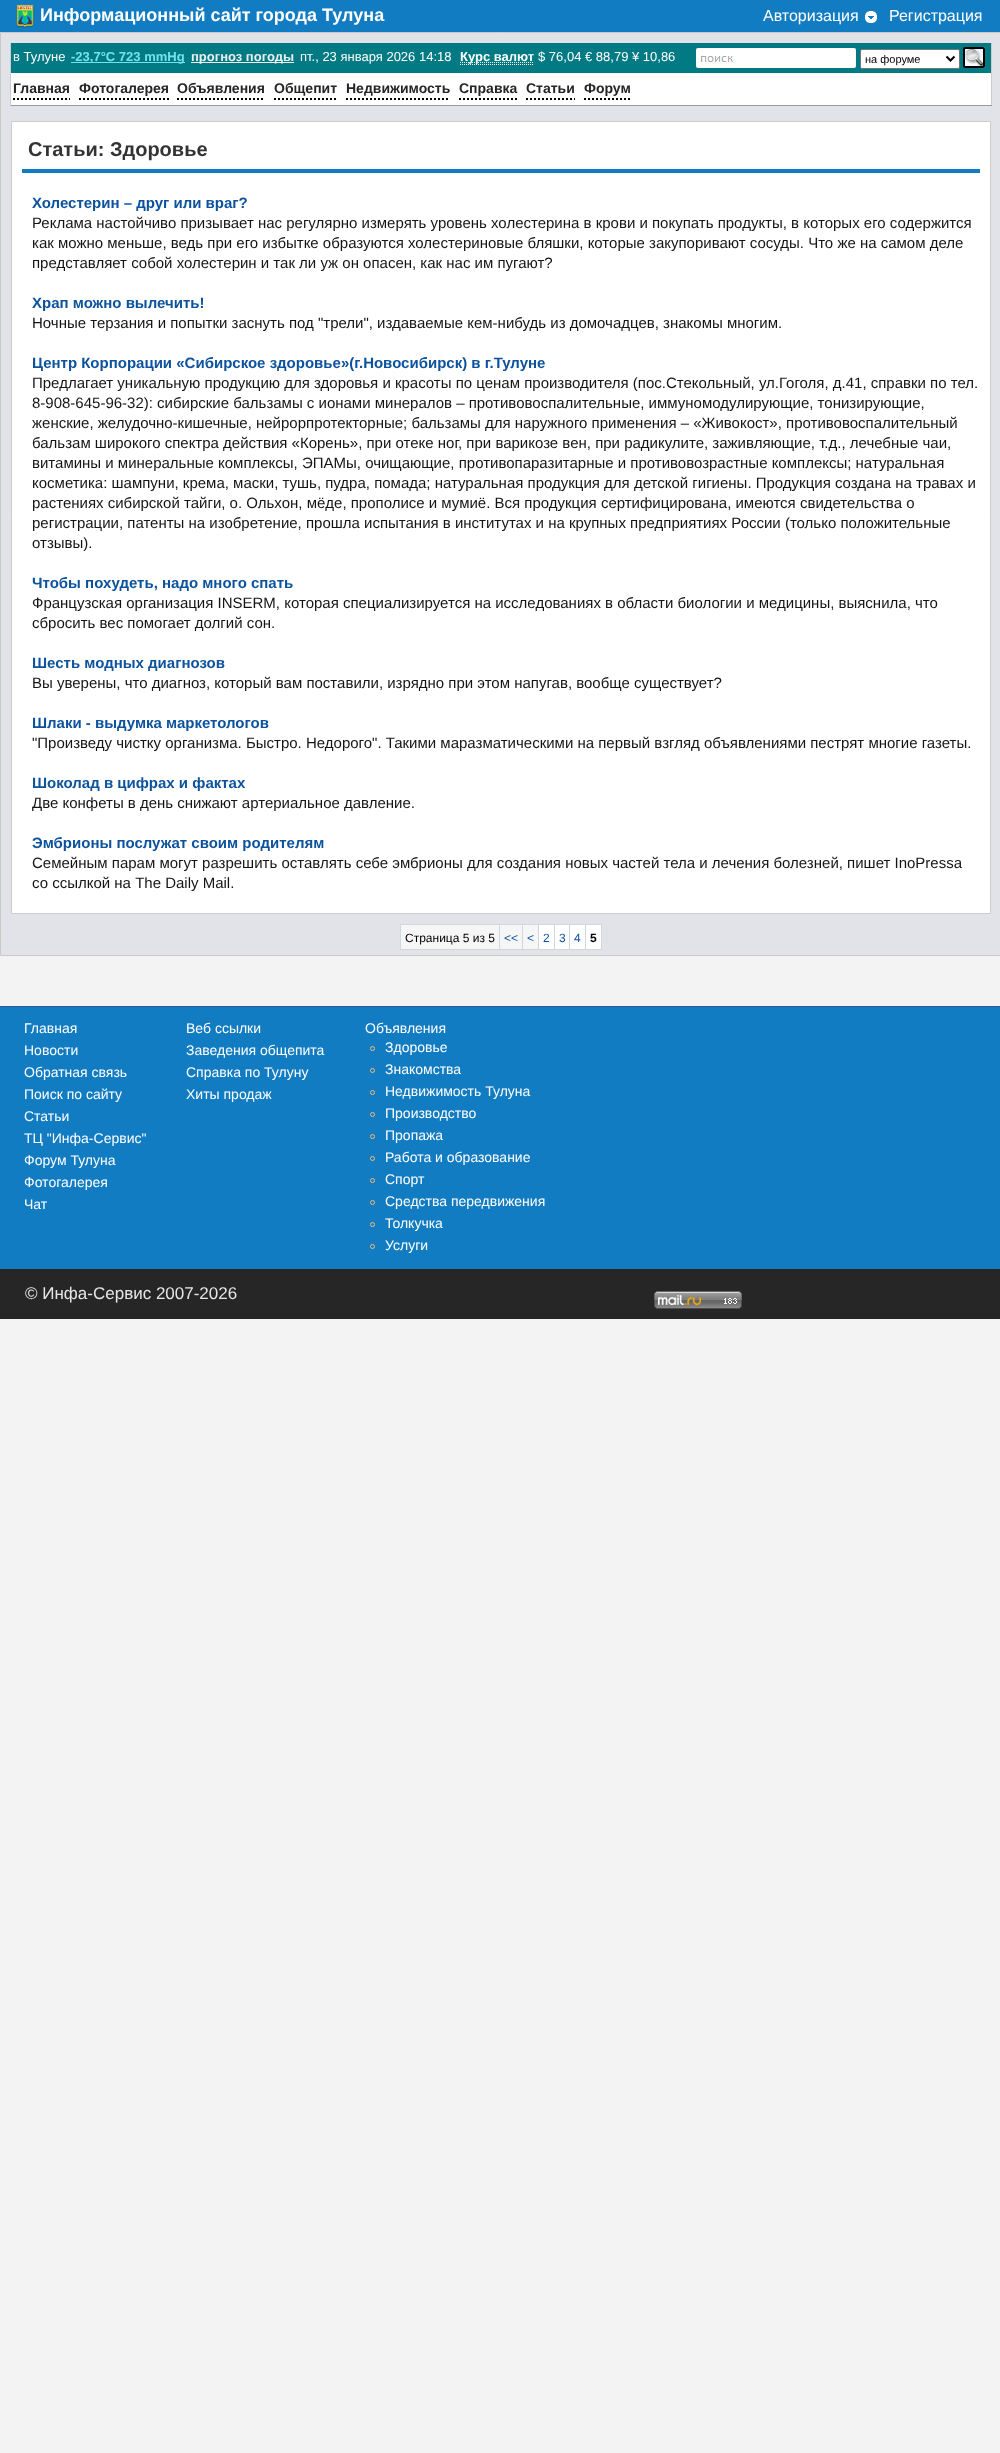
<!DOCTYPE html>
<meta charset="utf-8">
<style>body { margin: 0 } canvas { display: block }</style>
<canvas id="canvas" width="1000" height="2453"></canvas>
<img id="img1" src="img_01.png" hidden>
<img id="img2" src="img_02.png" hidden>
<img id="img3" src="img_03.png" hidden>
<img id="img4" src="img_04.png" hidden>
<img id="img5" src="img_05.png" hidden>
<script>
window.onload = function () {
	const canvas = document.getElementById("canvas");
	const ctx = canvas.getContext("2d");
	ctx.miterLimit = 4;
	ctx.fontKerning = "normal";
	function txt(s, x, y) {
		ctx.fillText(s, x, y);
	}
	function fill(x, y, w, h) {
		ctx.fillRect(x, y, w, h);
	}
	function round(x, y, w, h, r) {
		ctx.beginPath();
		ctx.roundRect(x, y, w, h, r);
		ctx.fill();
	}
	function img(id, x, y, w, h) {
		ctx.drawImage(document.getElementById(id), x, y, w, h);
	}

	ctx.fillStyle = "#F3F3F3";
	fill(0, 0, 1000, 2453);
	ctx.fillStyle = "#127CC2";
	fill(0, 0, 1000, 32);
	img("img1", 16, 4, 19, 24);
	img("img2", 865, 11, 12, 12);
	ctx.fillStyle = "#E2E2E9";
	ctx.beginPath();
	ctx.rect(0.5, 32.5, 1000, 923);
	ctx.fill();
	ctx.strokeStyle = "#C9C9C9";
	ctx.stroke();
	ctx.fillStyle = "#027A84";
	fill(11, 43, 980, 30);
	ctx.fillStyle = "#CCCCCC";
	fill(991, 43, 1, 63);
	fill(10, 43, 1, 30);
	ctx.fillStyle = "#72E3ED";
	fill(71, 62, 114, 1);
	ctx.fillStyle = "#EFEFEF";
	fill(191, 62, 103, 1);
	ctx.beginPath();
	ctx.moveTo(460, 64.5);
	ctx.lineTo(534, 64.5);
	ctx.strokeStyle = "#FFFFFF";
	ctx.setLineDash([1, 1]);
	ctx.stroke();
	ctx.beginPath();
	ctx.moveTo(460, 62.5);
	ctx.lineTo(534, 62.5);
	ctx.stroke();
	ctx.fillStyle = "#FFFFFF";
	round(696, 48, 160, 20, 2);
	img("img3", 700, 56, 33, 6);
	ctx.beginPath();
	ctx.roundRect(860.5, 49.5, 99, 19, 1.5);
	ctx.fill();
	ctx.strokeStyle = "#767676";
	ctx.setLineDash([]);
	ctx.stroke();
	ctx.beginPath();
	ctx.moveTo(946.5, 56.5);
	ctx.lineTo(950.5, 60.5);
	ctx.lineTo(954.5, 56.5);
	ctx.strokeStyle = "#000000";
	ctx.lineWidth = 2;
	ctx.stroke();
	img("img4", 964, 47, 21, 21);
	ctx.beginPath();
	ctx.roundRect(964, 48, 20, 19, 1);
	ctx.stroke();
	ctx.fillStyle = "#999999";
	fill(10, 105, 982, 1);
	ctx.fillStyle = "#CCCCCC";
	fill(10, 73, 1, 33);
	ctx.fillStyle = "#FFFFFF";
	fill(11, 73, 980, 32);
	ctx.beginPath();
	ctx.moveTo(13, 99);
	ctx.lineTo(70, 99);
	ctx.setLineDash([2, 2]);
	ctx.stroke();
	ctx.beginPath();
	ctx.moveTo(79, 99);
	ctx.lineTo(169, 99);
	ctx.stroke();
	ctx.beginPath();
	ctx.moveTo(177, 99);
	ctx.lineTo(265, 99);
	ctx.stroke();
	ctx.beginPath();
	ctx.moveTo(274, 99);
	ctx.lineTo(337, 99);
	ctx.stroke();
	ctx.beginPath();
	ctx.moveTo(346, 99);
	ctx.lineTo(450, 99);
	ctx.stroke();
	ctx.beginPath();
	ctx.moveTo(459, 99);
	ctx.lineTo(517, 99);
	ctx.stroke();
	ctx.beginPath();
	ctx.moveTo(526, 99);
	ctx.lineTo(575, 99);
	ctx.stroke();
	ctx.beginPath();
	ctx.moveTo(584, 99);
	ctx.lineTo(630, 99);
	ctx.stroke();
	ctx.beginPath();
	ctx.rect(11.5, 121.5, 979, 792);
	ctx.fill();
	ctx.strokeStyle = "#CCCCCC";
	ctx.lineWidth = 1;
	ctx.setLineDash([]);
	ctx.stroke();
	ctx.fillStyle = "#127CC2";
	fill(22, 169, 958, 4);
	ctx.fillStyle = "#D1D8DD";
	fill(400, 924, 202, 26);
	ctx.fillStyle = "#F6F6F6";
	fill(401, 925, 98, 24);
	fill(500, 925, 22, 24);
	fill(523, 925, 15, 24);
	ctx.fillStyle = "#FFFFFF";
	fill(539, 925, 15, 24);
	fill(555, 925, 14, 24);
	fill(570, 925, 15, 24);
	fill(586, 925, 15, 24);
	ctx.fillStyle = "#127CC2";
	fill(0, 1007, 1000, 262);
	ctx.fillStyle = "#2D599C";
	fill(0, 1006, 1000, 1);
	ctx.beginPath();
	ctx.arc(372.5, 1048.5, 2, 0, Math.PI * 2);
	ctx.strokeStyle = "#F9BC6D";
	ctx.stroke();
	ctx.beginPath();
	ctx.arc(372.5, 1070.5, 2, 0, Math.PI * 2);
	ctx.stroke();
	ctx.beginPath();
	ctx.arc(372.5, 1092.5, 2, 0, Math.PI * 2);
	ctx.stroke();
	ctx.beginPath();
	ctx.arc(372.5, 1114.5, 2, 0, Math.PI * 2);
	ctx.stroke();
	ctx.beginPath();
	ctx.arc(372.5, 1136.5, 2, 0, Math.PI * 2);
	ctx.stroke();
	ctx.beginPath();
	ctx.arc(372.5, 1158.5, 2, 0, Math.PI * 2);
	ctx.stroke();
	ctx.beginPath();
	ctx.arc(372.5, 1180.5, 2, 0, Math.PI * 2);
	ctx.stroke();
	ctx.beginPath();
	ctx.arc(372.5, 1202.5, 2, 0, Math.PI * 2);
	ctx.stroke();
	ctx.beginPath();
	ctx.arc(372.5, 1224.5, 2, 0, Math.PI * 2);
	ctx.stroke();
	ctx.beginPath();
	ctx.arc(372.5, 1246.5, 2, 0, Math.PI * 2);
	ctx.stroke();
	ctx.fillStyle = "#262626";
	fill(0, 1269, 1000, 50);
	img("img5", 654, 1291, 88, 18);
	ctx.font = "bold 18px Liberation Sans";
	ctx.fillStyle = "#FFFFFF";
	txt("Информационный сайт города Тулуна", 40, 21);
	ctx.font = "16px Liberation Sans";
	txt("Авторизация", 763, 21);
	txt("Регистрация", 889, 21);
	ctx.font = "13px Liberation Sans";
	txt("в Тулуне", 13, 61);
	ctx.font = "bold 13px Liberation Sans";
	ctx.fillStyle = "#72E3ED";
	txt("-23,7°C 723 mmHg", 71, 61);
	ctx.fillStyle = "#EFEFEF";
	txt("прогноз погоды", 191, 61);
	ctx.font = "13px Liberation Sans";
	ctx.fillStyle = "#FFFFFF";
	txt("пт., 23 января 2026 14:18", 300, 61);
	ctx.font = "bold 13px Liberation Sans";
	txt("Курс валют", 460, 61);
	ctx.font = "13px Liberation Sans";
	txt("$ 76,04 € 88,79 ¥ 10,86", 538, 61);
	ctx.font = "11px Liberation Sans";
	ctx.fillStyle = "#000000";
	txt("на форуме", 865, 63);
	ctx.font = "bold 14px Liberation Sans";
	ctx.fillStyle = "#252525";
	txt("Главная", 13, 93);
	txt("Фотогалерея", 79, 93);
	txt("Объявления", 177, 93);
	txt("Общепит", 274, 93);
	txt("Недвижимость", 346, 93);
	txt("Справка", 459, 93);
	txt("Статьи", 526, 93);
	txt("Форум", 584, 93);
	ctx.font = "bold 20px Liberation Sans";
	ctx.fillStyle = "#333333";
	txt("Статьи: Здоровье", 28, 156);
	ctx.font = "bold 15px Liberation Sans";
	ctx.fillStyle = "#0C529D";
	txt("Холестерин – друг или враг?", 32, 208);
	ctx.font = "15px Liberation Sans";
	ctx.fillStyle = "#151515";
	txt("Реклама настойчиво призывает нас регулярно измерять уровень холестерина в крови и покупать продукты, в которых его содержится", 32, 228);
	txt("как можно меньше, ведь при его избытке образуются холестериновые бляшки, которые закупоривают сосуды. Что же на самом деле", 32, 248);
	txt("представляет собой холестерин и так ли уж он опасен, как нас им пугают?", 32, 268);
	ctx.font = "bold 15px Liberation Sans";
	ctx.fillStyle = "#0C529D";
	txt("Храп можно вылечить!", 32, 308);
	ctx.font = "15px Liberation Sans";
	ctx.fillStyle = "#151515";
	txt("Ночные терзания и попытки заснуть под \"трели\", издаваемые кем-нибудь из домочадцев, знакомы многим.", 32, 328);
	ctx.font = "bold 15px Liberation Sans";
	ctx.fillStyle = "#0C529D";
	txt("Центр Корпорации «Сибирское здоровье»(г.Новосибирск) в г.Тулуне", 32, 368);
	ctx.font = "15px Liberation Sans";
	ctx.fillStyle = "#151515";
	txt("Предлагает уникальную продукцию для здоровья и красоты по ценам производителя (пос.Стекольный, ул.Гоголя, д.41, справки по тел.", 32, 388);
	txt("8-908-645-96-32): сибирские бальзамы с ионами минералов – противовоспалительные, иммуномодулирующие, тонизирующие,", 32, 408);
	txt("женские, желудочно-кишечные, нейрорпротекторные; бальзамы для наружного применения – «Живокост», противовоспалительный", 32, 428);
	txt("бальзам широкого спектра действия «Корень», при отеке ног, при варикозе вен, при радикулите, заживляющие, т.д., лечебные чаи,", 32, 448);
	txt("витамины и минеральные комплексы, ЭПАМы, очищающие, противопаразитарные и противовозрастные комплексы; натуральная", 32, 468);
	txt("косметика: шампуни, крема, маски, тушь, пудра, помада; натуральная продукция для детской гигиены. Продукция создана на травах и", 32, 488);
	txt("растениях сибирской тайги, о. Ольхон, мёде, прополисе и мумиё. Вся продукция сертифицирована, имеются свидетельства о", 32, 508);
	txt("регистрации, патенты на изобретение, прошла испытания в институтах и на крупных предприятиях России (только положительные", 32, 528);
	txt("отзывы).", 32, 548);
	ctx.font = "bold 15px Liberation Sans";
	ctx.fillStyle = "#0C529D";
	txt("Чтобы похудеть, надо много спать", 32, 588);
	ctx.font = "15px Liberation Sans";
	ctx.fillStyle = "#151515";
	txt("Французская организация INSERM, которая специализируется на исследованиях в области биологии и медицины, выяснила, что", 32, 608);
	txt("сбросить вес помогает долгий сон.", 32, 628);
	ctx.font = "bold 15px Liberation Sans";
	ctx.fillStyle = "#0C529D";
	txt("Шесть модных диагнозов", 32, 668);
	ctx.font = "15px Liberation Sans";
	ctx.fillStyle = "#151515";
	txt("Вы уверены, что диагноз, который вам поставили, изрядно при этом напугав, вообще существует?", 32, 688);
	ctx.font = "bold 15px Liberation Sans";
	ctx.fillStyle = "#0C529D";
	txt("Шлаки - выдумка маркетологов", 32, 728);
	ctx.font = "15px Liberation Sans";
	ctx.fillStyle = "#151515";
	txt("\"Произведу чистку организма. Быстро. Недорого\". Такими маразматическими на первый взгляд объявлениями пестрят многие газеты.", 32, 748);
	ctx.font = "bold 15px Liberation Sans";
	ctx.fillStyle = "#0C529D";
	txt("Шоколад в цифрах и фактах", 32, 788);
	ctx.font = "15px Liberation Sans";
	ctx.fillStyle = "#151515";
	txt("Две конфеты в день снижают артериальное давление.", 32, 808);
	ctx.font = "bold 15px Liberation Sans";
	ctx.fillStyle = "#0C529D";
	txt("Эмбрионы послужат своим родителям", 32, 848);
	ctx.font = "15px Liberation Sans";
	ctx.fillStyle = "#151515";
	txt("Семейным парам могут разрешить оставлять себе эмбрионы для создания новых частей тела и лечения болезней, пишет InoPressa", 32, 868);
	txt("со ссылкой на The Daily Mail.", 32, 888);
	ctx.font = "12px Liberation Sans";
	ctx.fillStyle = "#000000";
	txt("Страница 5 из 5", 405, 942);
	ctx.fillStyle = "#0C529D";
	txt("<<", 504, 942);
	txt("<", 527, 942);
	txt("2", 543, 942);
	txt("3", 559, 942);
	txt("4", 574, 942);
	ctx.font = "bold 12px Liberation Sans";
	ctx.fillStyle = "#000000";
	txt("5", 590, 942);
	ctx.font = "14px Liberation Sans";
	ctx.fillStyle = "#FFFFFF";
	txt("Главная", 24, 1033);
	txt("Новости", 24, 1055);
	txt("Обратная связь", 24, 1077);
	txt("Поиск по сайту", 24, 1099);
	txt("Статьи", 24, 1121);
	txt("ТЦ \"Инфа-Сервис\"", 24, 1143);
	txt("Форум Тулуна", 24, 1165);
	txt("Фотогалерея", 24, 1187);
	txt("Чат", 24, 1209);
	txt("Веб ссылки", 186, 1033);
	txt("Заведения общепита", 186, 1055);
	txt("Справка по Тулуну", 186, 1077);
	txt("Хиты продаж", 186, 1099);
	txt("Объявления", 365, 1033);
	txt("Здоровье", 385, 1052);
	txt("Знакомства", 385, 1074);
	txt("Недвижимость Тулуна", 385, 1096);
	txt("Производство", 385, 1118);
	txt("Пропажа", 385, 1140);
	txt("Работа и образование", 385, 1162);
	txt("Спорт", 385, 1184);
	txt("Средства передвижения", 385, 1206);
	txt("Толкучка", 385, 1228);
	txt("Услуги", 385, 1250);
	ctx.font = "17px Liberation Sans";
	ctx.fillStyle = "#E6E6E6";
	txt("© Инфа-Сервис 2007-2026", 25, 1299);
};
</script>
